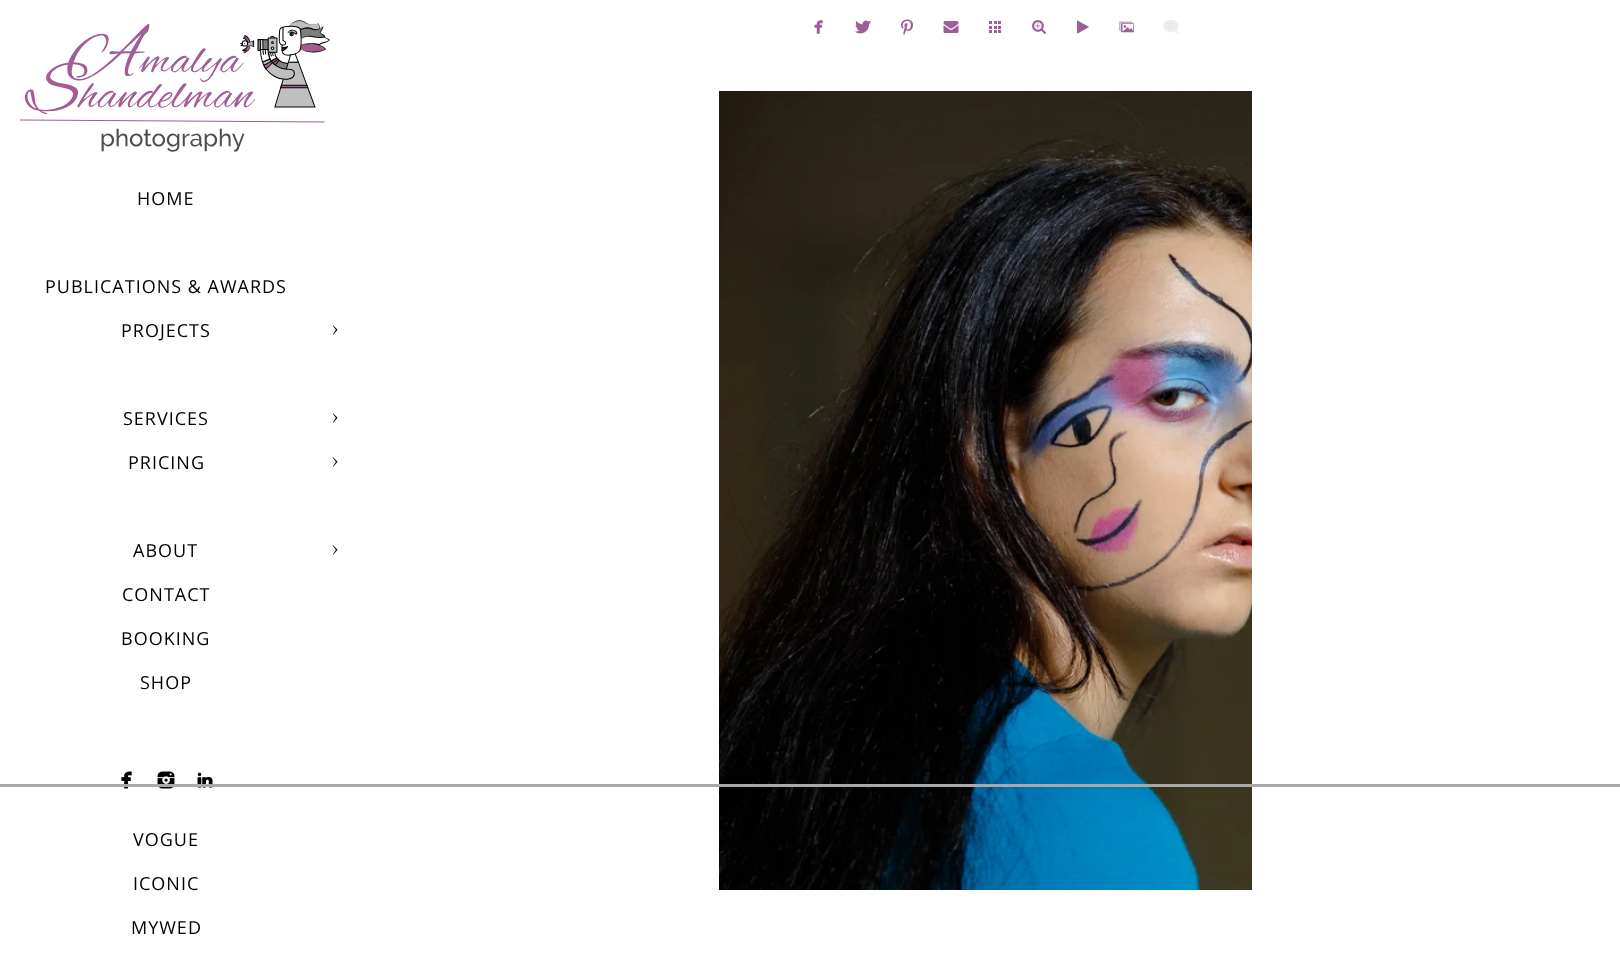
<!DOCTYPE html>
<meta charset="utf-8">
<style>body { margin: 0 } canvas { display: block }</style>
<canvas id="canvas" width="1620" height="980"></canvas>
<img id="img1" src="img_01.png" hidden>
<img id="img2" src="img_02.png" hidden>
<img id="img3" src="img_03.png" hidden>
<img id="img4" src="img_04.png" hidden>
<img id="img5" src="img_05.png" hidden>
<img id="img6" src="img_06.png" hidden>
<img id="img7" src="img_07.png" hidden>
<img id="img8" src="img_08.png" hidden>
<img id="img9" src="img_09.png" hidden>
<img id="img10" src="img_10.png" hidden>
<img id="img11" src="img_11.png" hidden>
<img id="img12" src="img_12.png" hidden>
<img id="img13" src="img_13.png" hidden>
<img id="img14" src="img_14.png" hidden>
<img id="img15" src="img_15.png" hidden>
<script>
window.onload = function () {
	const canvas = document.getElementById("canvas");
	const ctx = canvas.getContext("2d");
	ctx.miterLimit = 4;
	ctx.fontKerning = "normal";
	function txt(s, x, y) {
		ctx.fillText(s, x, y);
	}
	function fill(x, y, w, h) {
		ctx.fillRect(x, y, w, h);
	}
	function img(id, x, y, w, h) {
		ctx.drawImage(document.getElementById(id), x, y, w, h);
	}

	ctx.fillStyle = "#FFFFFF";
	fill(0, 0, 1620, 980);
	img("img1", 814, 20, 9, 14);
	img("img2", 855, 20, 16, 14);
	img("img3", 900, 19, 13, 16);
	img("img4", 943, 21, 16, 12);
	img("img5", 989, 21, 12, 12);
	img("img6", 1032, 20, 14, 14);
	img("img7", 1077, 20, 12, 14);
	img("img8", 1119, 21, 15, 12);
	img("img9", 1163, 19, 16, 14);
	img("img10", 20, 20, 310, 132);
	img("img11", 332, 325, 6, 10);
	img("img11", 332, 413, 6, 10);
	img("img11", 332, 457, 6, 10);
	img("img11", 332, 545, 6, 10);
	img("img12", 121, 771, 11, 18);
	img("img13", 157, 771, 18, 18);
	img("img14", 197, 772, 16, 16);
	img("img15", 719, 91, 533, 799);
	ctx.fillStyle = "#A9A9A9";
	fill(0, 784, 1620, 3);
	ctx.letterSpacing = "1px";
	ctx.font = "18px Open Sans";
	ctx.fillStyle = "#000000";
	txt("HOME", 137, 205);
	txt("PUBLICATIONS & AWARDS", 45, 293);
	txt("PROJECTS", 121, 337);
	txt("SERVICES", 123, 425);
	txt("PRICING", 128, 469);
	txt("ABOUT", 133, 557);
	txt("CONTACT", 122, 601);
	txt("BOOKING", 121, 645);
	txt("SHOP", 140, 689);
	txt("VOGUE", 133, 846);
	txt("ICONIC", 133, 890);
	txt("MYWED", 131, 934);
};
</script>
